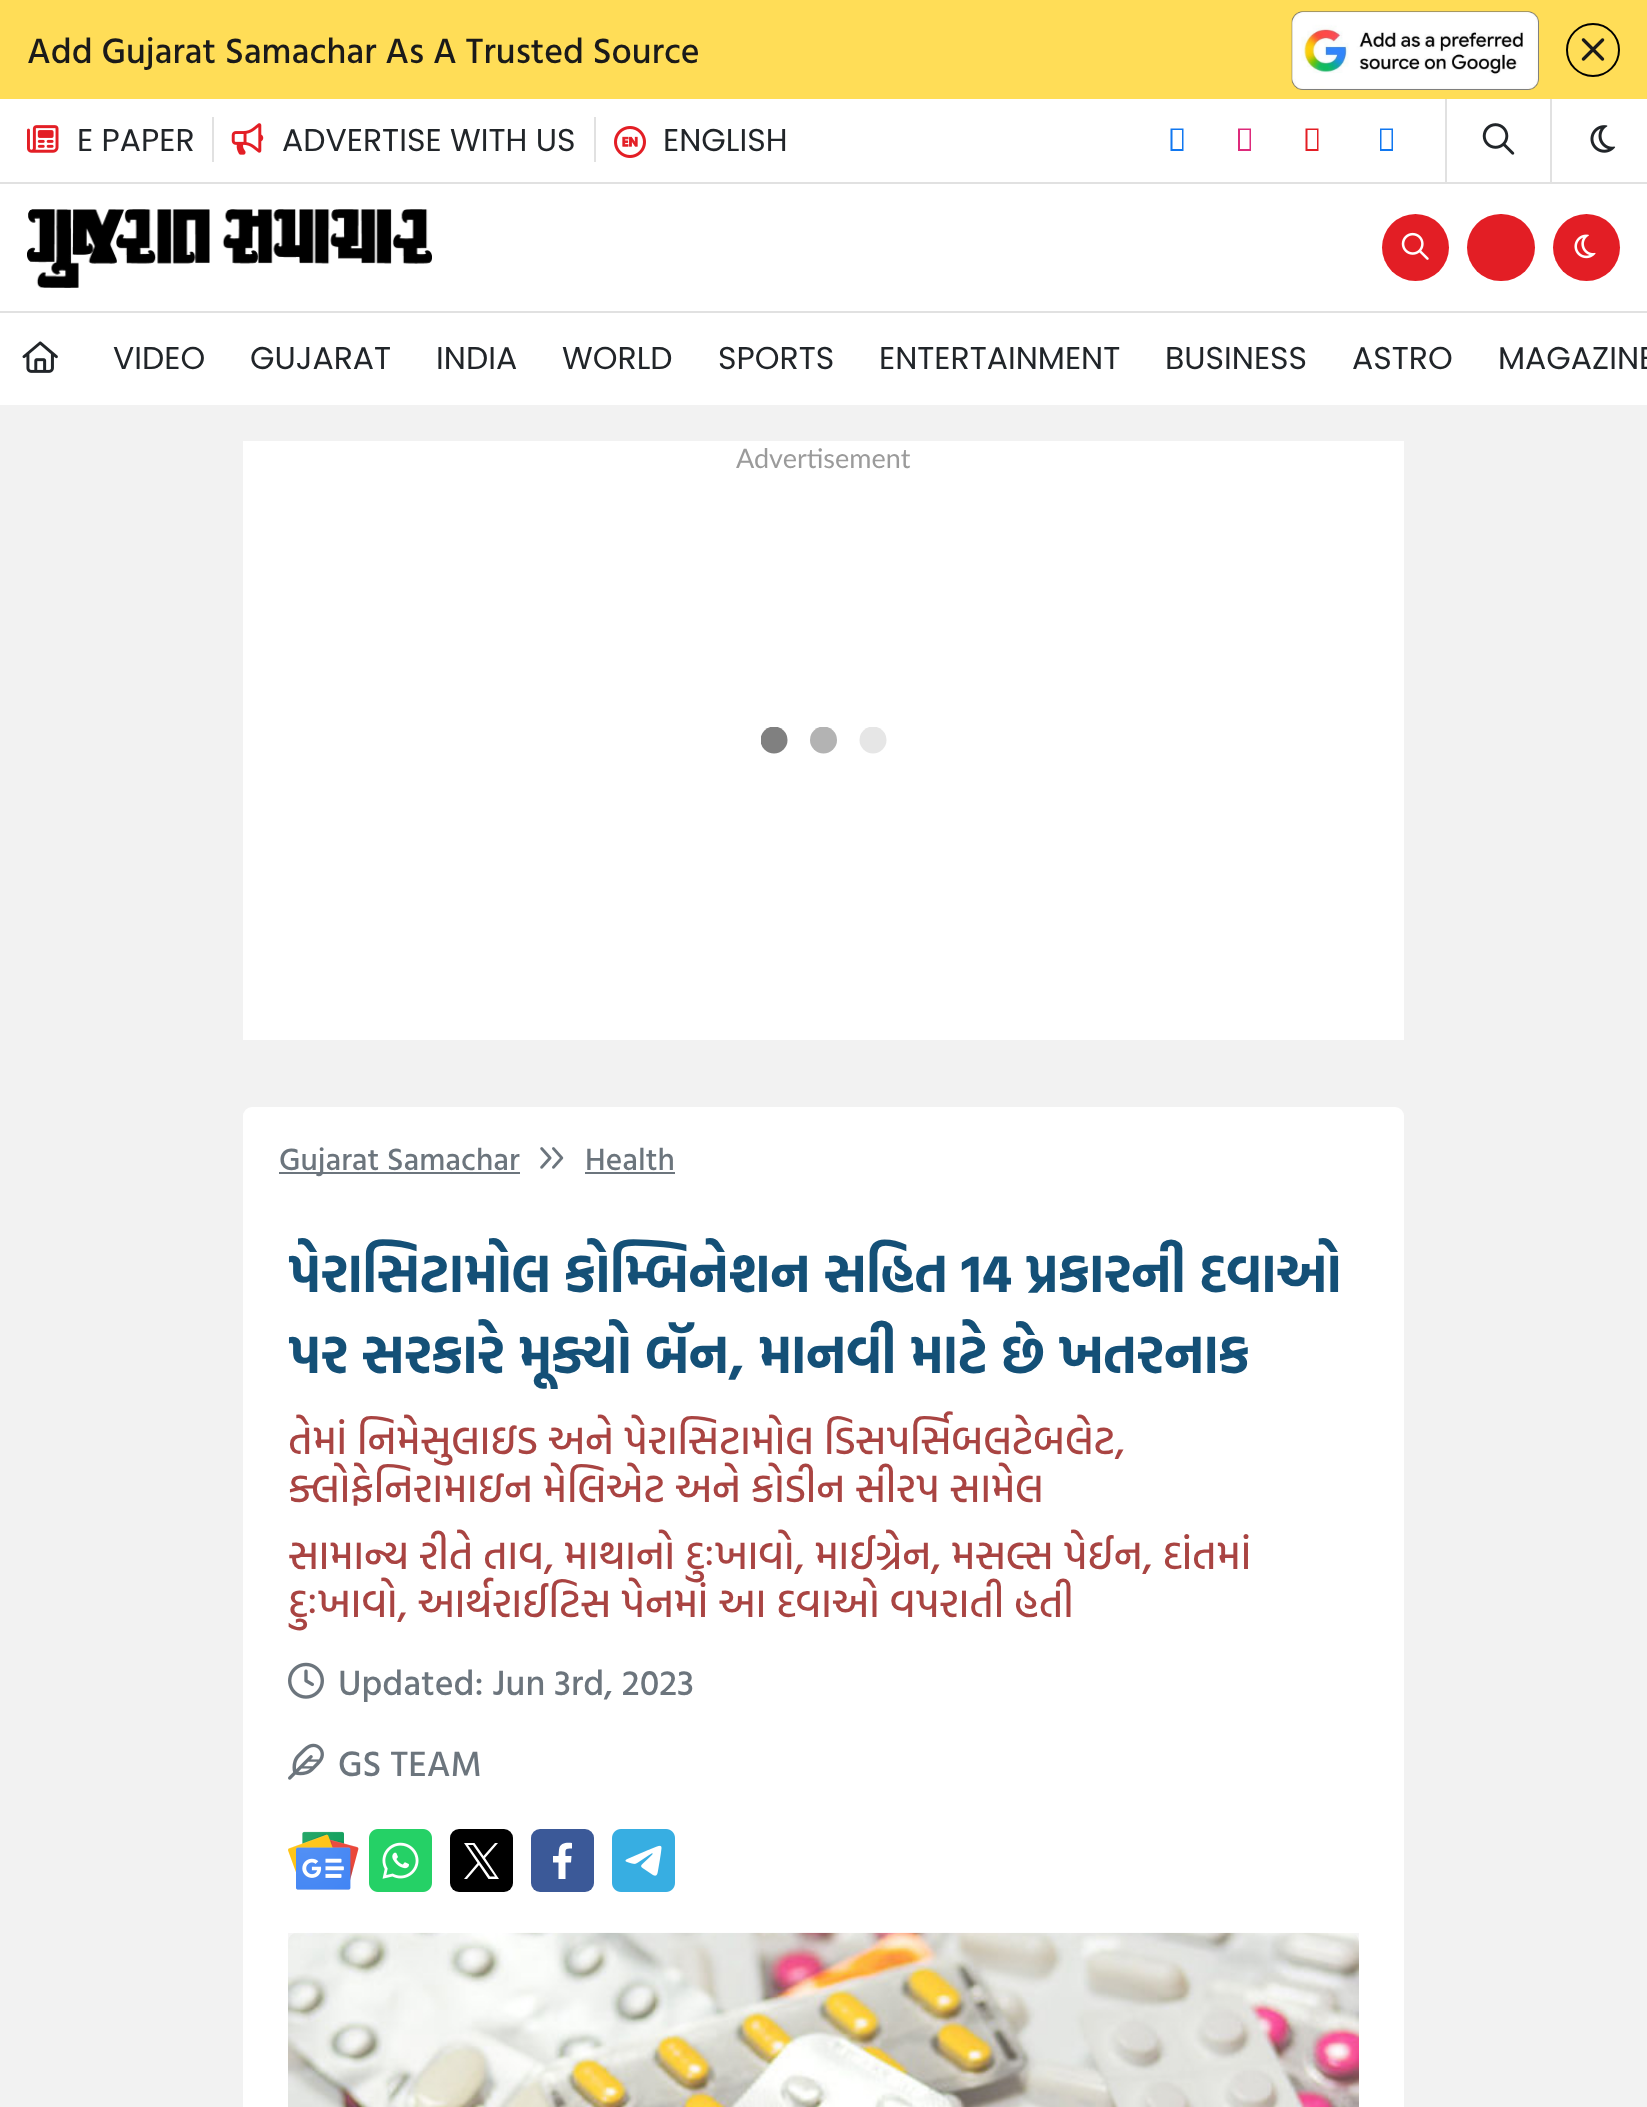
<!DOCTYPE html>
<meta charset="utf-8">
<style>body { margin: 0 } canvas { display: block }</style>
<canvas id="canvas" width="1647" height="2107"></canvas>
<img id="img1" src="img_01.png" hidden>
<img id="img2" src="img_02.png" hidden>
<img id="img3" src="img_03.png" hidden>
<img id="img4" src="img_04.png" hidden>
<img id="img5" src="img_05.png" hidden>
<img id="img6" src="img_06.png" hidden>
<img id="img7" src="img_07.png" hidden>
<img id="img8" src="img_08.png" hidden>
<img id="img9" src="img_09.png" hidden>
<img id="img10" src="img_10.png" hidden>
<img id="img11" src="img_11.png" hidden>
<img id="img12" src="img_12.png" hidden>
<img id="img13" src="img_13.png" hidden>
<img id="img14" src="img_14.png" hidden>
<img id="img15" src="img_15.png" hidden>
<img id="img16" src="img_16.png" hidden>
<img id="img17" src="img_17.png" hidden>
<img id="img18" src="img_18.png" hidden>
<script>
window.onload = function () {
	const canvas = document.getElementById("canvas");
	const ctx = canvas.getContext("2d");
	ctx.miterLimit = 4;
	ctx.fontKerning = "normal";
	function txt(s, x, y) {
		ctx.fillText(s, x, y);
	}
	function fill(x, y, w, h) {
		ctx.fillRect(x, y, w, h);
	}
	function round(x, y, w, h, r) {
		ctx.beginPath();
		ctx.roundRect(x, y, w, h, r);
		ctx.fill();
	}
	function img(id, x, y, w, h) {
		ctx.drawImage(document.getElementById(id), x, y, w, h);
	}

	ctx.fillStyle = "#F2F2F2";
	fill(0, 0, 1647, 2107);
	ctx.fillStyle = "#FFDD57";
	fill(0, 0, 1647, 99);
	img("img1", 1291, 11, 248, 79);
	ctx.beginPath();
	ctx.arc(1593, 50, 26, 0, Math.PI * 2);
	ctx.strokeStyle = "#000000";
	ctx.lineWidth = 2;
	ctx.stroke();
	img("img2", 1581, 38, 24, 23);
	ctx.fillStyle = "#FFFFFF";
	fill(0, 99, 1647, 212);
	ctx.fillStyle = "#E1E1E1";
	fill(0, 182, 1647, 2);
	fill(212, 117, 2, 45);
	img("img3", 27, 125, 32, 28);
	fill(594, 117, 2, 45);
	img("img4", 231, 123, 33, 32);
	img("img5", 614, 126, 32, 32);
	ctx.fillStyle = "#1077F0";
	ctx.beginPath();
	ctx.moveTo(1170.5, 151);
	ctx.lineTo(1170.5, 128.5);
	ctx.lineTo(1183.5, 128.5);
	ctx.lineTo(1183.5, 151);
	ctx.closePath();
	ctx.moveTo(1172.5, 149);
	ctx.lineTo(1182, 149);
	ctx.lineTo(1182, 130);
	ctx.lineTo(1172.5, 130);
	ctx.closePath();
	ctx.fill();
	ctx.fillStyle = "#DD2A7B";
	ctx.beginPath();
	ctx.moveTo(1238, 151);
	ctx.lineTo(1238, 128.5);
	ctx.lineTo(1251, 128.5);
	ctx.lineTo(1251, 151);
	ctx.closePath();
	ctx.moveTo(1240, 149);
	ctx.lineTo(1249.5, 149);
	ctx.lineTo(1249.5, 130);
	ctx.lineTo(1240, 130);
	ctx.closePath();
	ctx.fill();
	ctx.fillStyle = "#E31E25";
	ctx.beginPath();
	ctx.moveTo(1305.5, 151);
	ctx.lineTo(1305.5, 128.5);
	ctx.lineTo(1318.5, 128.5);
	ctx.lineTo(1318.5, 151);
	ctx.closePath();
	ctx.moveTo(1307.5, 149);
	ctx.lineTo(1317, 149);
	ctx.lineTo(1317, 130);
	ctx.lineTo(1307.5, 130);
	ctx.closePath();
	ctx.fill();
	ctx.fillStyle = "#1077F0";
	ctx.beginPath();
	ctx.moveTo(1380, 151);
	ctx.lineTo(1380, 128.5);
	ctx.lineTo(1393, 128.5);
	ctx.lineTo(1393, 151);
	ctx.closePath();
	ctx.moveTo(1381.5, 149);
	ctx.lineTo(1391.5, 149);
	ctx.lineTo(1391.5, 130);
	ctx.lineTo(1381.5, 130);
	ctx.closePath();
	ctx.fill();
	ctx.fillStyle = "#E1E1E1";
	fill(1445, 99, 2, 83);
	img("img6", 1482, 123, 33, 32);
	fill(1550, 99, 2, 83);
	img("img7", 1590, 125, 26, 28);
	img("img8", 27, 209, 405, 79);
	ctx.fillStyle = "#E31E25";
	ctx.beginPath();
	ctx.arc(1415.5, 247.5, 33.5, 0, Math.PI * 2);
	ctx.fill();
	img("img9", 1401, 232, 28, 28);
	round(1467, 214, 68, 67, 33.5);
	ctx.beginPath();
	ctx.arc(1586.5, 247.5, 33.5, 0, Math.PI * 2);
	ctx.fill();
	img("img10", 1574, 234, 22, 25);
	ctx.fillStyle = "#FFFFFF";
	fill(0, 313, 1647, 92);
	ctx.fillStyle = "#E1E1E1";
	fill(0, 311, 1647, 2);
	img("img11", 22, 341, 36, 32);
	ctx.fillStyle = "#FFFFFF";
	fill(243, 441, 1161, 599);
	ctx.save();
	ctx.beginPath();
	ctx.rect(761, 727, 126, 27);
	ctx.clip();
	ctx.fillStyle = "#808080";
	ctx.beginPath();
	ctx.arc(774, 740, 13.5, 0, Math.PI * 2);
	ctx.fill();
	ctx.fillStyle = "#B3B3B3";
	ctx.beginPath();
	ctx.arc(823.5, 740, 13.5, 0, Math.PI * 2);
	ctx.fill();
	ctx.fillStyle = "#E6E6E6";
	ctx.beginPath();
	ctx.arc(873, 740, 13.5, 0, Math.PI * 2);
	ctx.fill();
	ctx.restore();
	round(243, 1107, 1161, 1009, 9);
	ctx.fillStyle = "#6C757D";
	fill(279, 1172, 241, 2);
	img("img12", 540, 1147, 24, 22);
	fill(585, 1172, 90, 2);
	img("img13", 288, 1662, 36, 37);
	img("img14", 288, 1743, 36, 37);
	img("img15", 288, 1831, 71, 59);
	img("img16", 369, 1829, 63, 63);
	ctx.fillStyle = "#000000";
	round(450, 1829, 63, 63, 9);
	ctx.fillStyle = "#FFFFFF";
	ctx.beginPath();
	ctx.moveTo(485, 1858);
	ctx.lineTo(498, 1843);
	ctx.lineTo(495, 1843);
	ctx.lineTo(483.5, 1856);
	ctx.lineTo(474.5, 1843);
	ctx.lineTo(464, 1843);
	ctx.lineTo(477.5, 1863);
	ctx.lineTo(464, 1879);
	ctx.lineTo(467, 1879);
	ctx.lineTo(479, 1865);
	ctx.lineTo(488.5, 1879);
	ctx.lineTo(499, 1879);
	ctx.closePath();
	ctx.moveTo(480.5, 1863);
	ctx.lineTo(468, 1845);
	ctx.lineTo(473, 1845);
	ctx.lineTo(495, 1876.5);
	ctx.lineTo(490, 1876.5);
	ctx.closePath();
	ctx.fill();
	ctx.fillStyle = "#3B5998";
	round(531, 1829, 63, 63, 9);
	ctx.fillStyle = "#FFFFFF";
	ctx.beginPath();
	ctx.moveTo(565.5, 1879);
	ctx.lineTo(565.5, 1862.5);
	ctx.lineTo(571, 1862.5);
	ctx.lineTo(571.5, 1856);
	ctx.lineTo(565.5, 1856);
	ctx.bezierCurveTo(565.5, 1849, 564.5, 1848.5, 572, 1848.5);
	ctx.lineTo(572, 1843);
	ctx.bezierCurveTo(566.5, 1842.5, 560, 1842.5, 559, 1849.5);
	ctx.lineTo(558.5, 1856);
	ctx.lineTo(553, 1856);
	ctx.lineTo(553, 1862.5);
	ctx.lineTo(558.5, 1862.5);
	ctx.lineTo(558.5, 1879);
	ctx.closePath();
	ctx.fill();
	img("img17", 612, 1829, 63, 63);
	ctx.fillStyle = "#F5F5F5";
	fill(288, 1933, 1071, 9);
	img("img18", 288, 1932, 1071, 175);
	ctx.font = "500 36px Hind Vadodara";
	ctx.fillStyle = "#1A1A1A";
	txt("Add Gujarat Samachar As A Trusted Source", 27, 63);
	ctx.font = "31.5px Poppins";
	ctx.fillStyle = "#212529";
	txt("E PAPER", 77, 151);
	txt("ADVERTISE WITH US", 282, 151);
	txt("ENGLISH", 663, 151);
	txt("VIDEO", 113, 369);
	txt("GUJARAT", 250, 369);
	txt("INDIA", 436, 369);
	txt("WORLD", 562, 369);
	txt("SPORTS", 718, 369);
	txt("ENTERTAINMENT", 879, 369);
	txt("BUSINESS", 1165, 369);
	txt("ASTRO", 1352, 369);
	txt("MAGAZINE", 1498, 369);
	ctx.font = "27px Lato";
	ctx.fillStyle = "#9B9B9B";
	txt("Advertisement", 736, 468);
	ctx.font = "500 31.5px Hind Vadodara";
	ctx.fillStyle = "#6C757D";
	txt("Gujarat Samachar", 279, 1170);
	txt("Health", 585, 1170);
	ctx.font = "bold 54px Hind Vadodara";
	ctx.fillStyle = "#145077";
	txt("પેરાસિટામોલ કોમ્બિનેશન સહિત 14 પ્રકારની દવાઓ", 288, 1292);
	txt("પર સરકારે મૂક્યો બૅન, માનવી માટે છે ખતરનાક", 288, 1373);
	ctx.font = "500 40.5px Hind Vadodara";
	ctx.fillStyle = "#A94442";
	txt("તેમાં નિમેસુલાઇડ અને પેરાસિટામોલ ડિસપર્સિબલટેબલેટ,", 288, 1454);
	txt("ક્લોફેનિરામાઇન મેલિએટ અને કોડીન સીરપ સામેલ", 288, 1502);
	txt("સામાન્ય રીતે તાવ, માથાનો દુઃખાવો, માઈગ્રેન, મસલ્સ પેઈન, દાંતમાં", 288, 1569);
	txt("દુઃખાવો, આર્થરાઈટિસ પેનમાં આ દવાઓ વપરાતી હતી", 288, 1617);
	ctx.font = "500 36px Hind Vadodara";
	ctx.fillStyle = "#6C757D";
	txt("Updated: Jun 3rd, 2023", 338, 1695);
	txt("GS TEAM", 338, 1776);
};
</script>
